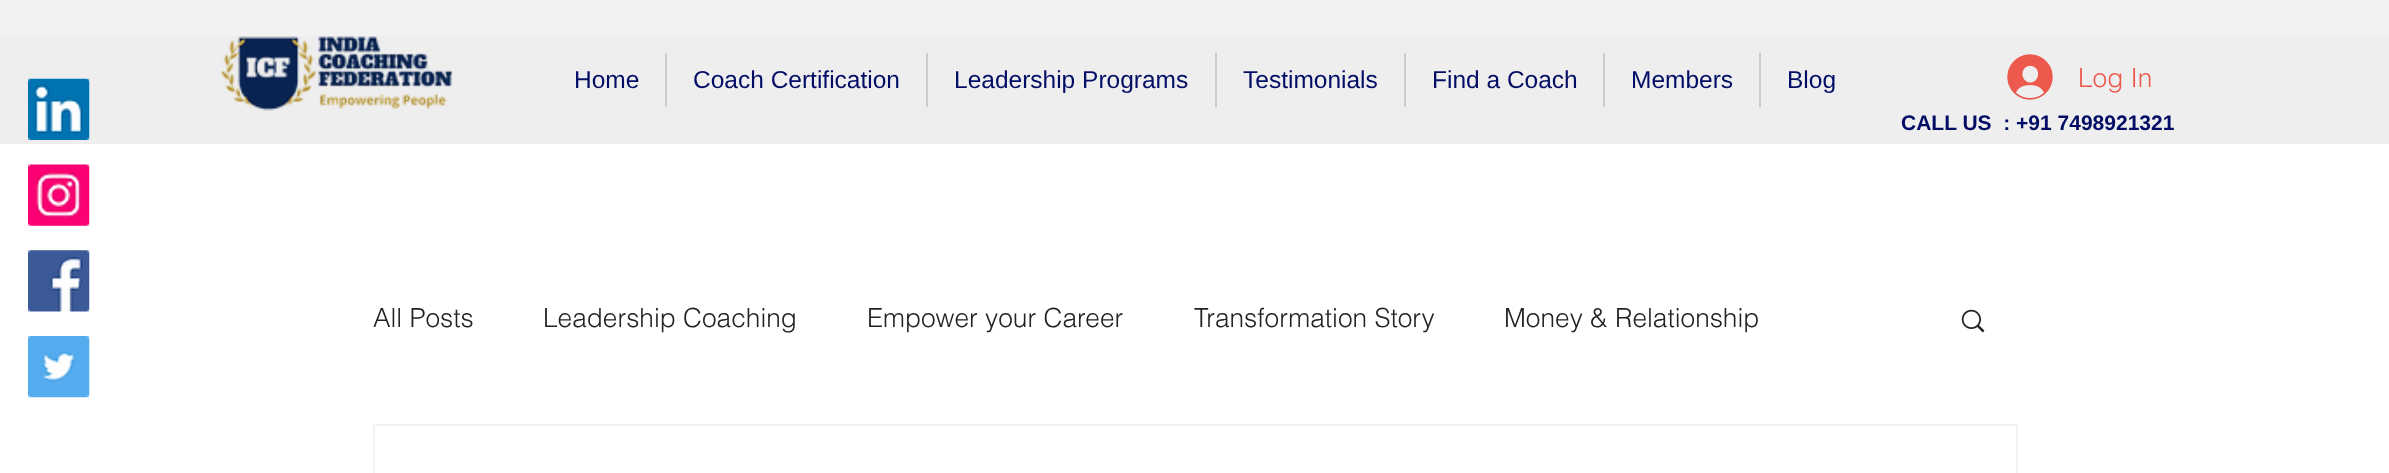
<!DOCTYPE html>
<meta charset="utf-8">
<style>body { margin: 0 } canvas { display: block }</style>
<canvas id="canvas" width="2389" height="473"></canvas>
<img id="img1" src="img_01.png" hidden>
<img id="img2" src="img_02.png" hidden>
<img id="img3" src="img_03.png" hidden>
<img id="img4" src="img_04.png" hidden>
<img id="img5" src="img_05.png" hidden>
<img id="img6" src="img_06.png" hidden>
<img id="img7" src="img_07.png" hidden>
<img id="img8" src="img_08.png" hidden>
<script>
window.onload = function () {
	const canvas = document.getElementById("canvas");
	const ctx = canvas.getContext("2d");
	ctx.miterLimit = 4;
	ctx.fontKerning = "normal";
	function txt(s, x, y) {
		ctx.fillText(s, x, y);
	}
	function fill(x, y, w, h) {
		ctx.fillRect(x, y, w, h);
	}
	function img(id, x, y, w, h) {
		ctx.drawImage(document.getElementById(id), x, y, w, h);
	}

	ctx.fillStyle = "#FFFFFF";
	fill(0, 0, 2389, 473);
	ctx.fillStyle = "#EEEEEE";
	fill(0, 0, 2389, 144);
	img("img1", 28, 78, 62, 62);
	img("img2", 28, 164, 62, 62);
	img("img3", 28, 250, 62, 62);
	img("img4", 28, 336, 62, 62);
	img("img5", 0, 0, 2389, 36);
	img("img6", 220, 36, 234, 75);
	ctx.fillStyle = "#CCCCCC";
	fill(665, 53, 2, 54);
	fill(926, 53, 2, 54);
	fill(1215, 53, 2, 54);
	fill(1404, 53, 2, 54);
	fill(1603, 53, 2, 54);
	fill(1759, 53, 2, 54);
	img("img7", 2007, 54, 46, 46);
	img("img8", 1961, 309, 24, 24);
	ctx.strokeStyle = "#F2F2F2";
	ctx.lineWidth = 2;
	ctx.strokeRect(374, 425, 1643, 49);
	ctx.font = "24.5px Liberation Sans";
	ctx.fillStyle = "#030D66";
	txt("Home", 574, 88);
	txt("Coach Certification", 693, 88);
	txt("Leadership Programs", 954, 88);
	txt("Testimonials", 1243, 88);
	txt("Find a Coach", 1432, 88);
	txt("Members", 1631, 88);
	txt("Blog", 1787, 88);
	ctx.font = "300 26.25px helvetica";
	ctx.fillStyle = "#ED594C";
	txt("Log In", 2078, 87);
	ctx.font = "bold 21px Liberation Sans";
	ctx.fillStyle = "#030D66";
	txt("CALL US  : +91 7498921321", 1901, 130);
	ctx.font = "300 26.25px helvetica";
	ctx.fillStyle = "#212223";
	txt("All Posts", 373, 327);
	txt("Leadership Coaching", 543, 327);
	txt("Empower your Career", 867, 327);
	txt("Transformation Story", 1194, 327);
	txt("Money & Relationship", 1504, 327);
};
</script>
